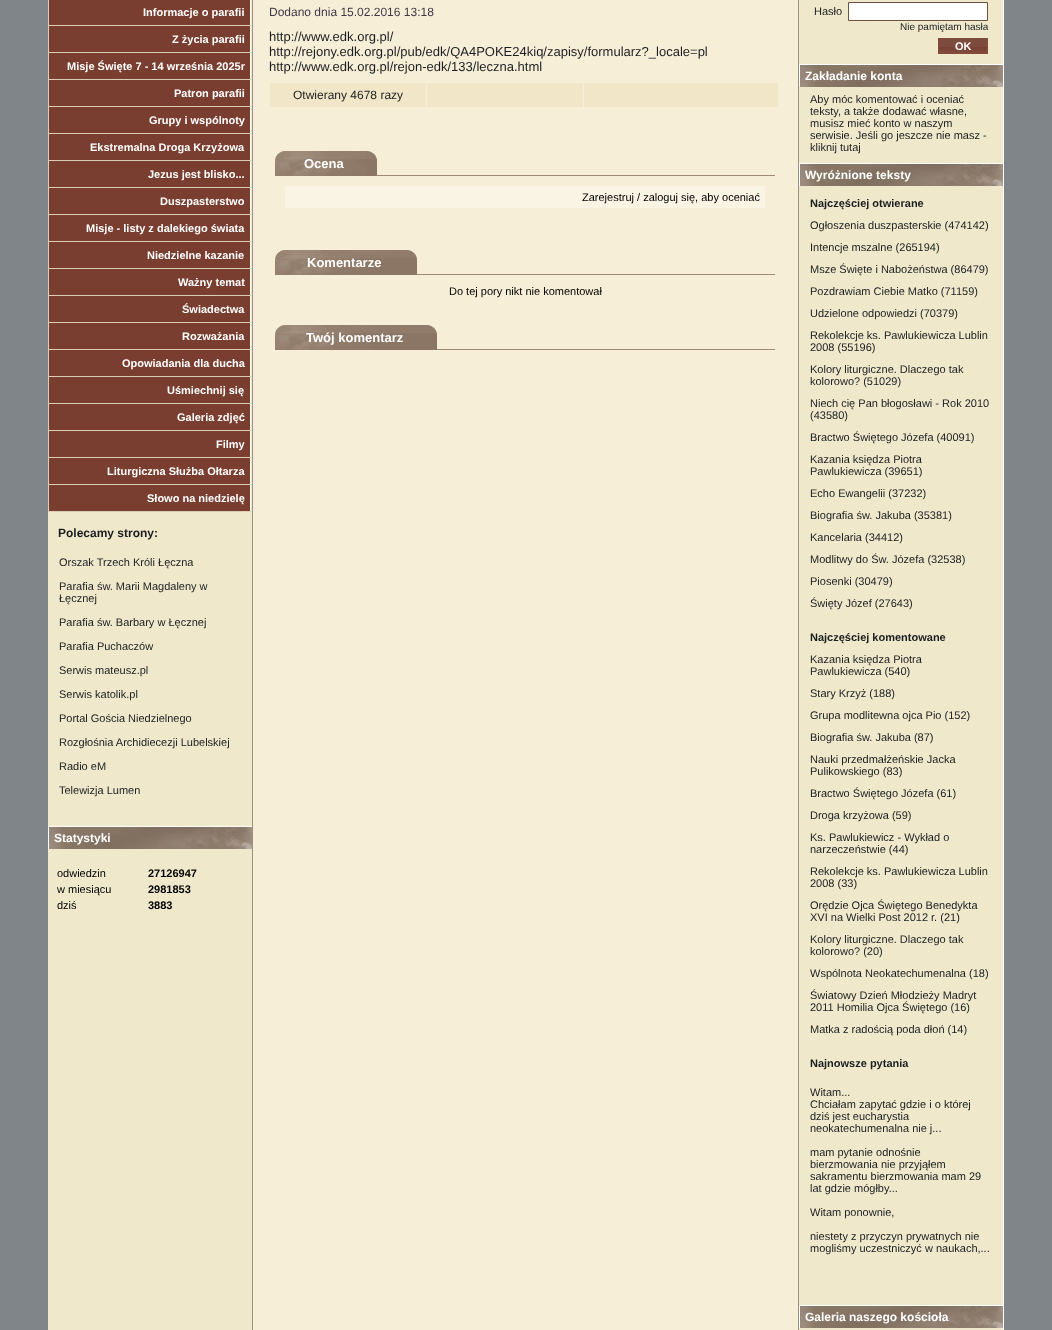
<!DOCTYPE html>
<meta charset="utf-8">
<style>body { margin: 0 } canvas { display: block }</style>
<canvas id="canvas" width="1052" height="1330"></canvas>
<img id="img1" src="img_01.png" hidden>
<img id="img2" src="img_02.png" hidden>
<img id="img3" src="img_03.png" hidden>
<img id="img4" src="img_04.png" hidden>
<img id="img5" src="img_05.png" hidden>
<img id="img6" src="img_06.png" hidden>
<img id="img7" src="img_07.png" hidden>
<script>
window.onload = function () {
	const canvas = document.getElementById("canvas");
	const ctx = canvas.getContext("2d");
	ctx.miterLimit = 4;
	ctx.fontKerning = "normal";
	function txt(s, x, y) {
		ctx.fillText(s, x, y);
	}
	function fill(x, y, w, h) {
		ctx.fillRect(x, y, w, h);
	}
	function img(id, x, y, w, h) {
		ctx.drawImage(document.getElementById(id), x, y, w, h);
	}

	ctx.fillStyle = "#7F8588";
	fill(0, 0, 1052, 1330);
	ctx.fillStyle = "#EFE8CB";
	fill(48, 0, 204, 1330);
	ctx.fillStyle = "#9F9082";
	fill(252, 0, 1, 1330);
	ctx.fillStyle = "#793E2F";
	fill(49, 0, 201, 25);
	ctx.fillStyle = "#FFFFFF";
	fill(250, 0, 1, 512);
	ctx.fillStyle = "#DDCEB8";
	fill(48, 25, 203, 1);
	fill(48, 0, 1, 26);
	ctx.fillStyle = "#793E2F";
	fill(49, 26, 201, 26);
	ctx.fillStyle = "#DDCEB8";
	fill(48, 52, 203, 1);
	fill(48, 26, 1, 27);
	ctx.fillStyle = "#793E2F";
	fill(49, 53, 201, 26);
	ctx.fillStyle = "#DDCEB8";
	fill(48, 79, 203, 1);
	fill(48, 53, 1, 27);
	ctx.fillStyle = "#793E2F";
	fill(49, 80, 201, 26);
	ctx.fillStyle = "#DDCEB8";
	fill(48, 106, 203, 1);
	fill(48, 80, 1, 27);
	ctx.fillStyle = "#793E2F";
	fill(49, 107, 201, 26);
	ctx.fillStyle = "#DDCEB8";
	fill(48, 133, 203, 1);
	fill(48, 107, 1, 27);
	ctx.fillStyle = "#793E2F";
	fill(49, 134, 201, 26);
	ctx.fillStyle = "#DDCEB8";
	fill(48, 160, 203, 1);
	fill(48, 134, 1, 27);
	ctx.fillStyle = "#793E2F";
	fill(49, 161, 201, 26);
	ctx.fillStyle = "#DDCEB8";
	fill(48, 187, 203, 1);
	fill(48, 161, 1, 27);
	ctx.fillStyle = "#793E2F";
	fill(49, 188, 201, 26);
	ctx.fillStyle = "#DDCEB8";
	fill(48, 214, 203, 1);
	fill(48, 188, 1, 27);
	ctx.fillStyle = "#793E2F";
	fill(49, 215, 201, 26);
	ctx.fillStyle = "#DDCEB8";
	fill(48, 241, 203, 1);
	fill(48, 215, 1, 27);
	ctx.fillStyle = "#793E2F";
	fill(49, 242, 201, 26);
	ctx.fillStyle = "#DDCEB8";
	fill(48, 268, 203, 1);
	fill(48, 242, 1, 27);
	ctx.fillStyle = "#793E2F";
	fill(49, 269, 201, 26);
	ctx.fillStyle = "#DDCEB8";
	fill(48, 295, 203, 1);
	fill(48, 269, 1, 27);
	ctx.fillStyle = "#793E2F";
	fill(49, 296, 201, 26);
	ctx.fillStyle = "#DDCEB8";
	fill(48, 322, 203, 1);
	fill(48, 296, 1, 27);
	ctx.fillStyle = "#793E2F";
	fill(49, 323, 201, 26);
	ctx.fillStyle = "#DDCEB8";
	fill(48, 349, 203, 1);
	fill(48, 323, 1, 27);
	ctx.fillStyle = "#793E2F";
	fill(49, 350, 201, 26);
	ctx.fillStyle = "#DDCEB8";
	fill(48, 376, 203, 1);
	fill(48, 350, 1, 27);
	ctx.fillStyle = "#793E2F";
	fill(49, 377, 201, 26);
	ctx.fillStyle = "#DDCEB8";
	fill(48, 403, 203, 1);
	fill(48, 377, 1, 27);
	ctx.fillStyle = "#793E2F";
	fill(49, 404, 201, 26);
	ctx.fillStyle = "#DDCEB8";
	fill(48, 430, 203, 1);
	fill(48, 404, 1, 27);
	ctx.fillStyle = "#793E2F";
	fill(49, 431, 201, 26);
	ctx.fillStyle = "#DDCEB8";
	fill(48, 457, 203, 1);
	fill(48, 431, 1, 27);
	ctx.fillStyle = "#793E2F";
	fill(49, 458, 201, 26);
	ctx.fillStyle = "#DDCEB8";
	fill(48, 484, 203, 1);
	fill(48, 458, 1, 27);
	ctx.fillStyle = "#793E2F";
	fill(49, 485, 201, 26);
	ctx.fillStyle = "#DDCEB8";
	fill(48, 511, 203, 1);
	fill(48, 485, 1, 27);
	img("img1", 49, 827, 203, 22);
	ctx.fillStyle = "#FFFFFF";
	fill(48, 826, 204, 1);
	fill(48, 826, 1, 23);
	ctx.fillStyle = "#F7EED7";
	fill(253, 0, 545, 1330);
	ctx.fillStyle = "#F1E6C8";
	fill(270, 83, 156, 24);
	fill(427, 83, 156, 24);
	fill(584, 83, 194, 24);
	img("img2", 275, 151, 11, 25);
	img("img3", 286, 151, 80, 25);
	img("img4", 366, 151, 11, 25);
	ctx.fillStyle = "#A08A78";
	fill(377, 175, 398, 1);
	ctx.fillStyle = "#FAF4E4";
	fill(285, 186, 480, 22);
	img("img2", 275, 250, 11, 25);
	img("img5", 286, 250, 120, 25);
	img("img4", 406, 250, 11, 25);
	ctx.fillStyle = "#A08A78";
	fill(417, 274, 358, 1);
	img("img2", 275, 325, 11, 25);
	img("img6", 286, 325, 140, 25);
	img("img4", 426, 325, 11, 25);
	fill(437, 349, 338, 1);
	ctx.fillStyle = "#EFE8CB";
	fill(799, 0, 204, 1330);
	ctx.fillStyle = "#FFFFFF";
	fill(1003, 0, 1, 1330);
	ctx.fillStyle = "#9F9082";
	fill(798, 0, 1, 1330);
	ctx.fillStyle = "#FFFFFF";
	ctx.beginPath();
	ctx.rect(848.5, 2.5, 139, 18);
	ctx.fill();
	ctx.strokeStyle = "#6A5140";
	ctx.stroke();
	img("img7", 939, 39, 48, 14);
	ctx.strokeStyle = "#864A3A";
	ctx.strokeRect(938.5, 38.5, 49, 15);
	img("img1", 800, 65, 203, 22);
	fill(799, 64, 204, 1);
	fill(799, 64, 1, 23);
	img("img1", 800, 164, 203, 22);
	fill(799, 163, 204, 1);
	fill(799, 163, 1, 23);
	img("img1", 800, 1306, 203, 22);
	fill(799, 1305, 204, 1);
	fill(799, 1305, 1, 23);
	ctx.font = "bold 11px Liberation Sans";
	txt("Informacje o parafii", 143, 16);
	txt("Z życia parafii", 172, 43);
	txt("Misje Święte 7 - 14 września 2025r", 67, 70);
	txt("Patron parafii", 174, 97);
	txt("Grupy i wspólnoty", 149, 124);
	txt("Ekstremalna Droga Krzyżowa", 90, 151);
	txt("Jezus jest blisko...", 148, 178);
	txt("Duszpasterstwo", 160, 205);
	txt("Misje - listy z dalekiego świata", 86, 232);
	txt("Niedzielne kazanie", 147, 259);
	txt("Ważny temat", 178, 286);
	txt("Świadectwa", 182, 313);
	txt("Rozważania", 182, 340);
	txt("Opowiadania dla ducha", 122, 367);
	txt("Uśmiechnij się", 167, 394);
	txt("Galeria zdjęć", 177, 421);
	txt("Filmy", 216, 448);
	txt("Liturgiczna Służba Ołtarza", 107, 475);
	txt("Słowo na niedzielę", 147, 502);
	ctx.font = "bold 12px Liberation Sans";
	ctx.fillStyle = "#1B1E21";
	txt("Polecamy strony:", 58, 537);
	ctx.font = "11px Liberation Sans";
	txt("Orszak Trzech Króli Łęczna", 59, 566);
	txt("Parafia św. Marii Magdaleny w", 59, 590);
	txt("Łęcznej", 59, 602);
	txt("Parafia św. Barbary w Łęcznej", 59, 626);
	txt("Parafia Puchaczów", 59, 650);
	txt("Serwis mateusz.pl", 59, 674);
	txt("Serwis katolik.pl", 59, 698);
	txt("Portal Gościa Niedzielnego", 59, 722);
	txt("Rozgłośnia Archidiecezji Lubelskiej", 59, 746);
	txt("Radio eM", 59, 770);
	txt("Telewizja Lumen", 59, 794);
	ctx.font = "bold 12px Liberation Sans";
	ctx.fillStyle = "#FFFFFF";
	txt("Statystyki", 54, 842);
	ctx.font = "11px Liberation Sans";
	ctx.fillStyle = "#000000";
	txt("odwiedzin", 57, 877);
	ctx.font = "bold 11px Liberation Sans";
	txt("27126947", 148, 877);
	ctx.font = "11px Liberation Sans";
	txt("w miesiącu", 57, 893);
	ctx.font = "bold 11px Liberation Sans";
	txt("2981853", 148, 893);
	ctx.font = "11px Liberation Sans";
	txt("dziś", 57, 909);
	ctx.font = "bold 11px Liberation Sans";
	txt("3883", 148, 909);
	ctx.font = "12px Liberation Sans";
	ctx.fillStyle = "#403849";
	txt("Dodano dnia 15.02.2016 13:18", 269, 16);
	ctx.font = "13px Liberation Sans";
	ctx.fillStyle = "#1B1E21";
	txt("http://www.edk.org.pl/", 269, 41);
	txt("http://rejony.edk.org.pl/pub/edk/QA4POKE24kiq/zapisy/formularz?_locale=pl", 269, 56);
	txt("http://www.edk.org.pl/rejon-edk/133/leczna.html", 269, 71);
	ctx.font = "12px Liberation Sans";
	txt("Otwierany 4678 razy", 293, 99);
	ctx.font = "bold 13px Liberation Sans";
	ctx.fillStyle = "#FFFFFF";
	txt("Ocena", 304, 168);
	ctx.font = "11px Liberation Sans";
	ctx.fillStyle = "#000000";
	txt("Zarejestruj / zaloguj się, aby oceniać", 582, 201);
	ctx.font = "bold 13px Liberation Sans";
	ctx.fillStyle = "#FFFFFF";
	txt("Komentarze", 307, 267);
	ctx.font = "11px Liberation Sans";
	ctx.fillStyle = "#000000";
	txt("Do tej pory nikt nie komentował", 449, 295);
	ctx.font = "bold 13px Liberation Sans";
	ctx.fillStyle = "#FFFFFF";
	txt("Twój komentarz", 306, 342);
	ctx.font = "11px Liberation Sans";
	ctx.fillStyle = "#1B1E21";
	txt("Hasło", 814, 15);
	ctx.font = "10px Liberation Sans";
	txt("Nie pamiętam hasła", 900, 30);
	ctx.font = "bold 11px Liberation Sans";
	ctx.fillStyle = "#FFFFFF";
	txt("OK", 955, 50);
	ctx.font = "bold 12px Liberation Sans";
	txt("Zakładanie konta", 805, 80);
	ctx.font = "11px Liberation Sans";
	ctx.fillStyle = "#1B1E21";
	txt("Aby móc komentować i oceniać", 810, 103);
	txt("teksty, a także dodawać własne,", 810, 115);
	txt("musisz mieć konto w naszym", 810, 127);
	txt("serwisie. Jeśli go jeszcze nie masz -", 810, 139);
	txt("kliknij tutaj", 810, 151);
	ctx.font = "bold 12px Liberation Sans";
	ctx.fillStyle = "#FFFFFF";
	txt("Wyróżnione teksty", 805, 179);
	ctx.font = "bold 11px Liberation Sans";
	ctx.fillStyle = "#1B1E21";
	txt("Najczęściej otwierane", 810, 207);
	ctx.font = "11px Liberation Sans";
	txt("Ogłoszenia duszpasterskie (474142)", 810, 229);
	txt("Intencje mszalne (265194)", 810, 251);
	txt("Msze Święte i Nabożeństwa (86479)", 810, 273);
	txt("Pozdrawiam Ciebie Matko (71159)", 810, 295);
	txt("Udzielone odpowiedzi (70379)", 810, 317);
	txt("Rekolekcje ks. Pawlukiewicza Lublin", 810, 339);
	txt("2008 (55196)", 810, 351);
	txt("Kolory liturgiczne. Dlaczego tak", 810, 373);
	txt("kolorowo? (51029)", 810, 385);
	txt("Niech cię Pan błogosławi - Rok 2010", 810, 407);
	txt("(43580)", 810, 419);
	txt("Bractwo Świętego Józefa (40091)", 810, 441);
	txt("Kazania księdza Piotra", 810, 463);
	txt("Pawlukiewicza (39651)", 810, 475);
	txt("Echo Ewangelii (37232)", 810, 497);
	txt("Biografia św. Jakuba (35381)", 810, 519);
	txt("Kancelaria (34412)", 810, 541);
	txt("Modlitwy do Św. Józefa (32538)", 810, 563);
	txt("Piosenki (30479)", 810, 585);
	txt("Święty Józef (27643)", 810, 607);
	ctx.font = "bold 11px Liberation Sans";
	txt("Najczęściej komentowane", 810, 641);
	ctx.font = "11px Liberation Sans";
	txt("Kazania księdza Piotra", 810, 663);
	txt("Pawlukiewicza (540)", 810, 675);
	txt("Stary Krzyż (188)", 810, 697);
	txt("Grupa modlitewna ojca Pio (152)", 810, 719);
	txt("Biografia św. Jakuba (87)", 810, 741);
	txt("Nauki przedmałżeńskie Jacka", 810, 763);
	txt("Pulikowskiego (83)", 810, 775);
	txt("Bractwo Świętego Józefa (61)", 810, 797);
	txt("Droga krzyżowa (59)", 810, 819);
	txt("Ks. Pawlukiewicz - Wykład o", 810, 841);
	txt("narzeczeństwie (44)", 810, 853);
	txt("Rekolekcje ks. Pawlukiewicza Lublin", 810, 875);
	txt("2008 (33)", 810, 887);
	txt("Orędzie Ojca Świętego Benedykta", 810, 909);
	txt("XVI na Wielki Post 2012 r. (21)", 810, 921);
	txt("Kolory liturgiczne. Dlaczego tak", 810, 943);
	txt("kolorowo? (20)", 810, 955);
	txt("Wspólnota Neokatechumenalna (18)", 810, 977);
	txt("Światowy Dzień Młodzieży Madryt", 810, 999);
	txt("2011 Homilia Ojca Świętego (16)", 810, 1011);
	txt("Matka z radością poda dłoń (14)", 810, 1033);
	ctx.font = "bold 11px Liberation Sans";
	txt("Najnowsze pytania", 810, 1067);
	ctx.font = "11px Liberation Sans";
	txt("Witam...", 810, 1096);
	txt("Chciałam zapytać gdzie i o której", 810, 1108);
	txt("dziś jest eucharystia", 810, 1120);
	txt("neokatechumenalna nie j...", 810, 1132);
	txt("mam pytanie odnośnie", 810, 1156);
	txt("bierzmowania nie przyjąłem", 810, 1168);
	txt("sakramentu bierzmowania mam 29", 810, 1180);
	txt("lat gdzie mógłby...", 810, 1192);
	txt("Witam ponownie,", 810, 1216);
	txt("niestety z przyczyn prywatnych nie", 810, 1240);
	txt("mogliśmy uczestniczyć w naukach,...", 810, 1252);
	ctx.font = "bold 12px Liberation Sans";
	ctx.fillStyle = "#FFFFFF";
	txt("Galeria naszego kościoła", 805, 1321);
};
</script>
